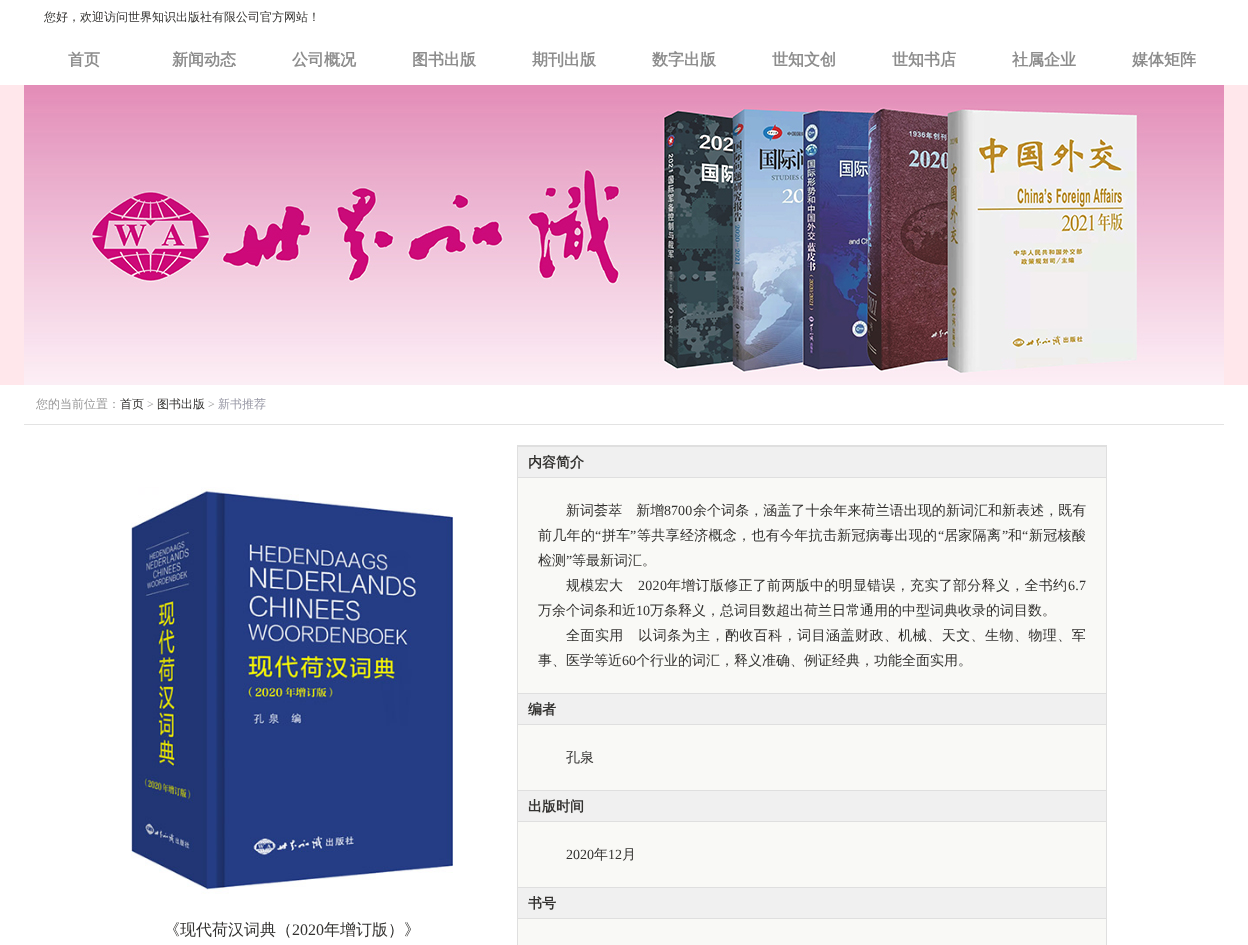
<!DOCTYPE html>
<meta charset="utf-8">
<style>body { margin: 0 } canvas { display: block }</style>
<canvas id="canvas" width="1248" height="945"></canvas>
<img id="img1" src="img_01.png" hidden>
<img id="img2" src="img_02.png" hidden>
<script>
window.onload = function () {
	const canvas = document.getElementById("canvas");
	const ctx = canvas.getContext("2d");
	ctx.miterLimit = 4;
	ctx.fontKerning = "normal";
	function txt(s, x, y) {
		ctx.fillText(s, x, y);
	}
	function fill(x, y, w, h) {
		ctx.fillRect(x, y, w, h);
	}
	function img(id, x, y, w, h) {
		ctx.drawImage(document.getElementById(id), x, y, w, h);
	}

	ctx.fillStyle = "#FFFFFF";
	fill(0, 0, 1248, 945);
	ctx.fillStyle = "#FFE7EB";
	fill(0, 85, 1248, 300);
	img("img1", 24, 85, 1200, 300);
	ctx.fillStyle = "#E3E3E3";
	fill(24, 424, 1200, 1);
	ctx.fillStyle = "#F9F9F6";
	fill(518, 478, 588, 467);
	ctx.strokeStyle = "#DFDFDF";
	ctx.strokeRect(517.5, 445.5, 589, 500);
	ctx.fillStyle = "#F0F0F0";
	fill(518, 447, 588, 30);
	ctx.fillStyle = "#DFDFDF";
	fill(518, 446, 588, 1);
	fill(518, 477, 588, 1);
	ctx.fillStyle = "#F0F0F0";
	fill(518, 694, 588, 30);
	ctx.fillStyle = "#DFDFDF";
	fill(518, 693, 588, 1);
	fill(518, 724, 588, 1);
	ctx.fillStyle = "#F0F0F0";
	fill(518, 791, 588, 30);
	ctx.fillStyle = "#DFDFDF";
	fill(518, 790, 588, 1);
	fill(518, 821, 588, 1);
	ctx.fillStyle = "#F0F0F0";
	fill(518, 888, 588, 30);
	ctx.fillStyle = "#DFDFDF";
	fill(518, 887, 588, 1);
	fill(518, 918, 588, 1);
	img("img2", 131, 487, 322, 407);
	ctx.font = "500 12px WenQuanYi Zen Hei";
	ctx.fillStyle = "#333230";
	txt("您好，欢迎访问世界知识出版社有限公司官方网站！", 44, 21);
	ctx.font = "bold 16px WenQuanYi Zen Hei";
	ctx.fillStyle = "#8D8D8D";
	txt("首页", 68, 65);
	txt("新闻动态", 172, 65);
	txt("公司概况", 292, 65);
	txt("图书出版", 412, 65);
	txt("期刊出版", 532, 65);
	txt("数字出版", 652, 65);
	txt("世知文创", 772, 65);
	txt("世知书店", 892, 65);
	txt("社属企业", 1012, 65);
	txt("媒体矩阵", 1132, 65);
	ctx.font = "500 12px WenQuanYi Zen Hei";
	ctx.fillStyle = "#999999";
	txt("您的当前位置：", 36, 408);
	ctx.fillStyle = "#333230";
	txt("首页", 120, 408);
	ctx.font = "12px Liberation Serif";
	ctx.fillStyle = "#999999";
	txt(">", 147, 408);
	ctx.font = "500 12px WenQuanYi Zen Hei";
	ctx.fillStyle = "#333230";
	txt("图书出版", 157, 408);
	ctx.font = "12px Liberation Serif";
	ctx.fillStyle = "#999999";
	txt(">", 208, 408);
	ctx.font = "500 12px WenQuanYi Zen Hei";
	ctx.fillStyle = "#9999A6";
	txt("新书推荐", 218, 408);
	ctx.font = "bold 14px WenQuanYi Zen Hei";
	ctx.fillStyle = "#333230";
	txt("内容简介", 528, 467);
	ctx.letterSpacing = "0.05px";
	ctx.font = "500 14px WenQuanYi Zen Hei";
	txt("新词荟萃　新增", 566, 515);
	ctx.font = "14px Liberation Serif";
	txt("8700", 664, 515);
	ctx.font = "500 14px WenQuanYi Zen Hei";
	txt("余个词条，涵盖了十余年来荷兰语出现的新词汇和新表述，既有", 693, 515);
	ctx.letterSpacing = "0.3px";
	txt("前几年的", 538, 540);
	ctx.font = "14px Liberation Serif";
	txt("“", 595, 540);
	ctx.font = "500 14px WenQuanYi Zen Hei";
	txt("拼车", 602, 540);
	ctx.font = "14px Liberation Serif";
	txt("”", 630, 540);
	ctx.font = "500 14px WenQuanYi Zen Hei";
	txt("等共享经济概念，也有今年抗击新冠病毒出现的", 637, 540);
	ctx.font = "14px Liberation Serif";
	txt("“", 938, 540);
	ctx.font = "500 14px WenQuanYi Zen Hei";
	txt("居家隔离", 944, 540);
	ctx.font = "14px Liberation Serif";
	txt("”", 1002, 540);
	ctx.font = "500 14px WenQuanYi Zen Hei";
	txt("和", 1008, 540);
	ctx.font = "14px Liberation Serif";
	txt("“", 1022, 540);
	ctx.font = "500 14px WenQuanYi Zen Hei";
	txt("新冠核酸", 1029, 540);
	ctx.letterSpacing = "0px";
	txt("检测", 538, 565);
	ctx.font = "14px Liberation Serif";
	txt("”", 566, 565);
	ctx.font = "500 14px WenQuanYi Zen Hei";
	txt("等最新词汇。", 572, 565);
	ctx.letterSpacing = "0.3px";
	txt("规模宏大", 566, 590);
	ctx.font = "14px Liberation Serif";
	txt("2020", 638, 590);
	ctx.font = "500 14px WenQuanYi Zen Hei";
	txt("年增订版修正了前两版中的明显错误，充实了部分释义，全书约", 667, 590);
	ctx.font = "14px Liberation Serif";
	txt("6.7", 1068, 590);
	ctx.letterSpacing = "0px";
	ctx.font = "500 14px WenQuanYi Zen Hei";
	txt("万余个词条和近", 538, 615);
	ctx.font = "14px Liberation Serif";
	txt("10", 636, 615);
	ctx.font = "500 14px WenQuanYi Zen Hei";
	txt("万条释义，总词目数超出荷兰日常通用的中型词典收录的词目数。", 650, 615);
	ctx.letterSpacing = "0.45px";
	txt("全面实用　以词条为主，酌收百科，词目涵盖财政、机械、天文、生物、物理、军", 566, 640);
	ctx.letterSpacing = "0px";
	txt("事、医学等近", 538, 665);
	ctx.font = "14px Liberation Serif";
	txt("60", 622, 665);
	ctx.font = "500 14px WenQuanYi Zen Hei";
	txt("个行业的词汇，释义准确、例证经典，功能全面实用。", 636, 665);
	ctx.font = "bold 14px WenQuanYi Zen Hei";
	txt("编者", 528, 714);
	ctx.font = "500 14px WenQuanYi Zen Hei";
	txt("孔泉", 566, 762);
	ctx.font = "bold 14px WenQuanYi Zen Hei";
	txt("出版时间", 528, 811);
	ctx.font = "14px Liberation Serif";
	txt("2020", 566, 859);
	ctx.font = "500 14px WenQuanYi Zen Hei";
	txt("年", 594, 859);
	ctx.font = "14px Liberation Serif";
	txt("12", 608, 859);
	ctx.font = "500 14px WenQuanYi Zen Hei";
	txt("月", 622, 859);
	ctx.font = "bold 14px WenQuanYi Zen Hei";
	txt("书号", 528, 908);
	ctx.font = "500 16px WenQuanYi Zen Hei";
	txt("《现代荷汉词典（", 164, 935);
	ctx.font = "16px Liberation Serif";
	txt("2020", 292, 935);
	ctx.font = "500 16px WenQuanYi Zen Hei";
	txt("年增订版）》", 324, 935);
};
</script>
